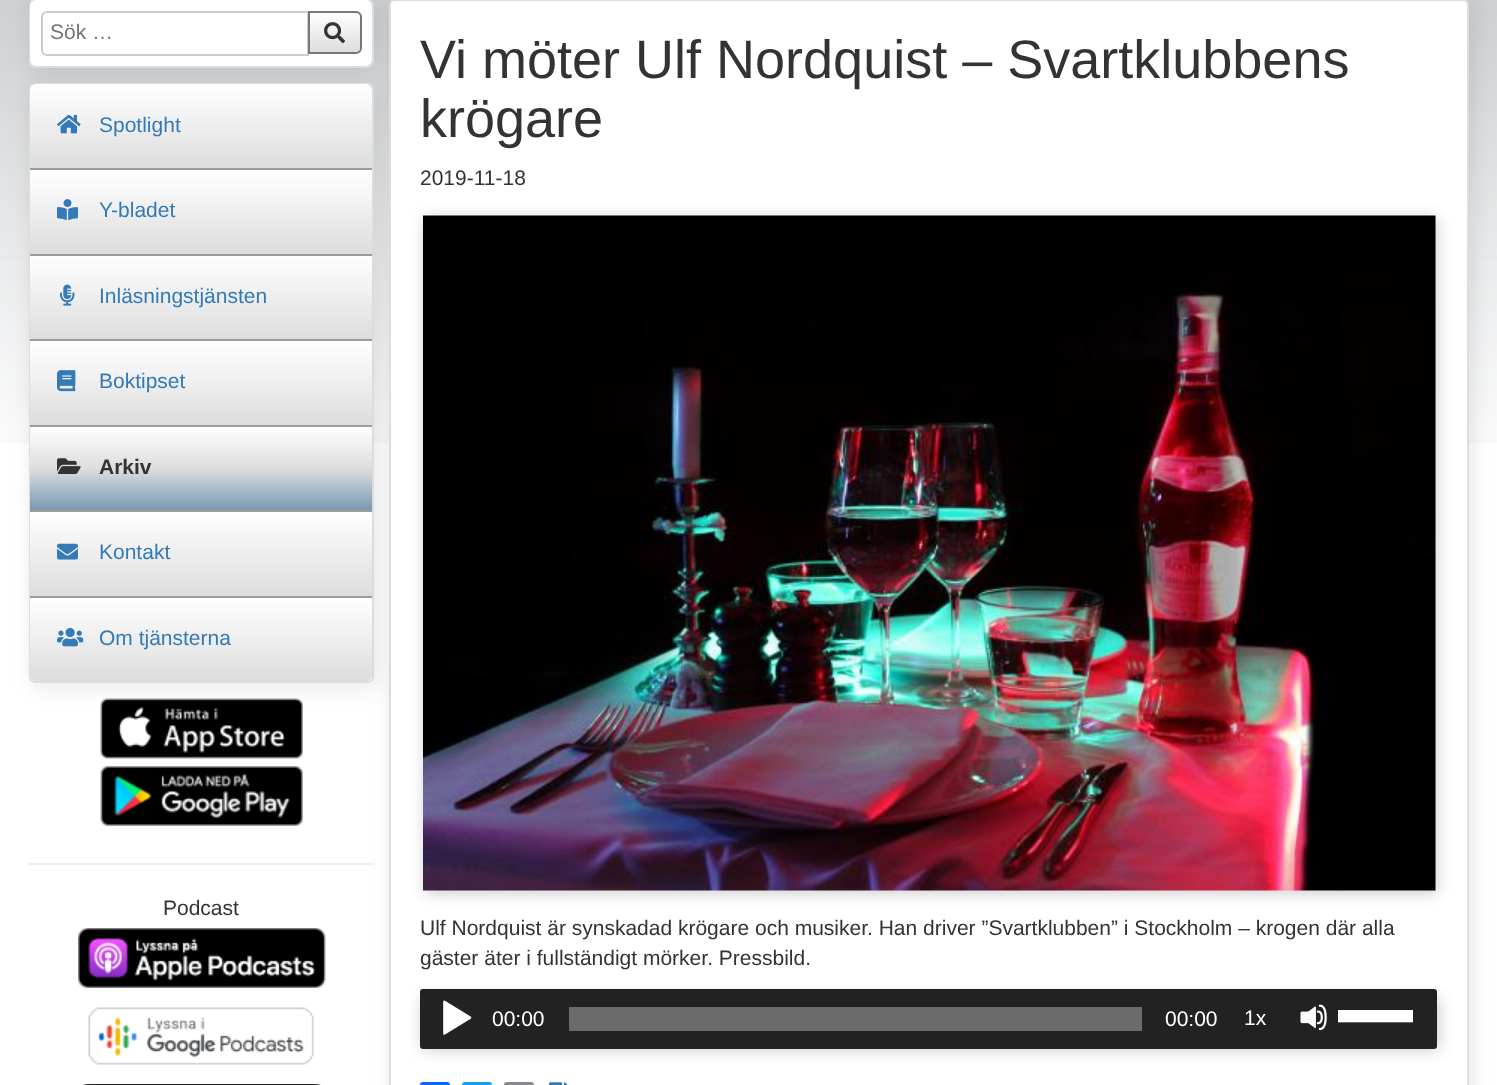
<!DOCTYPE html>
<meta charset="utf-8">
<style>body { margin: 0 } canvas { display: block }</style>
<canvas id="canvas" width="1497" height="1085"></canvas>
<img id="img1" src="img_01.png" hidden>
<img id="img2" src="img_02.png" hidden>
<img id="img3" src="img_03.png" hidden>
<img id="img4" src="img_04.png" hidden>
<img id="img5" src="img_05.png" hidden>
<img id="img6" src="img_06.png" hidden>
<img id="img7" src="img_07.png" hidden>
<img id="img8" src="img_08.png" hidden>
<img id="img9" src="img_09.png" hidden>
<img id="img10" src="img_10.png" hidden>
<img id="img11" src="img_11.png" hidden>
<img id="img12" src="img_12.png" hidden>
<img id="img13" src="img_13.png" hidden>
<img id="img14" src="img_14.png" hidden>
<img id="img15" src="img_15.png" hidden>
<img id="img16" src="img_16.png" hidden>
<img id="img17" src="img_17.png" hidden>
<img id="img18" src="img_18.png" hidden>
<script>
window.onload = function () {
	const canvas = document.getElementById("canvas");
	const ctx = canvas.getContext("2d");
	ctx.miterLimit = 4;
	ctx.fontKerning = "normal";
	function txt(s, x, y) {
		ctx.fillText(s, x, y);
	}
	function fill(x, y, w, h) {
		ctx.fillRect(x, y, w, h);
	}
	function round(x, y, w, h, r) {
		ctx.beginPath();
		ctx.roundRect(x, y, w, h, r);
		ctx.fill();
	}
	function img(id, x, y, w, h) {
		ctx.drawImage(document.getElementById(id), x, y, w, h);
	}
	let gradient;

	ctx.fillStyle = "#FFFFFF";
	fill(0, 0, 1497, 1085);
	img("img1", 0, 0, 1497, 443);
	ctx.fillStyle = "rgba(0, 0, 0, 0.1)";
	ctx.filter = "blur(11px)";
	ctx.beginPath();
	ctx.roundRect(32, 2, 345, 69, 6);
	ctx.fill();
	ctx.filter = "none";
	ctx.beginPath();
	ctx.roundRect(30, 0, 343, 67, 5);
	ctx.strokeStyle = "#DDDDDD";
	ctx.lineWidth = 2;
	ctx.stroke();
	ctx.fillStyle = "#FFFFFF";
	round(30, 0, 342, 66, 6);
	ctx.fillStyle = "rgba(0, 0, 0, 0.1)";
	ctx.filter = "blur(11px)";
	ctx.beginPath();
	ctx.roundRect(32, 86, 345, 600, 6);
	ctx.fill();
	ctx.filter = "none";
	ctx.beginPath();
	ctx.roundRect(42, 12, 266, 43, [5, 0, 0, 5]);
	ctx.strokeStyle = "#CCCCCC";
	ctx.stroke();
	ctx.beginPath();
	ctx.roundRect(30, 84, 343, 598, 5);
	ctx.strokeStyle = "#DDDDDD";
	ctx.stroke();
	gradient = ctx.createLinearGradient(31, 84, 31, 252);
	gradient.addColorStop(0, "#FFFFFF");
	gradient.addColorStop(0.5, "#DDDDDD");
	gradient.addColorStop(0.51, "#DDDDDD");
	gradient.addColorStop(0.91, "#7DB9E8");
	ctx.fillStyle = gradient;
	ctx.beginPath();
	ctx.roundRect(30, 84, 342, 84, [6, 6, 0, 0]);
	ctx.fill();
	gradient = ctx.createLinearGradient(31, 170, 31, 338);
	gradient.addColorStop(0, "#FFFFFF");
	gradient.addColorStop(0.5, "#DDDDDD");
	gradient.addColorStop(0.51, "#DDDDDD");
	gradient.addColorStop(0.91, "#7DB9E8");
	ctx.fillStyle = gradient;
	fill(30, 170, 342, 84);
	ctx.fillStyle = "#9C9C9C";
	fill(30, 168, 342, 2);
	gradient = ctx.createLinearGradient(31, 255, 31, 423);
	gradient.addColorStop(0, "#FFFFFF");
	gradient.addColorStop(0.5, "#DDDDDD");
	gradient.addColorStop(0.51, "#DDDDDD");
	gradient.addColorStop(0.91, "#7DB9E8");
	ctx.fillStyle = gradient;
	fill(30, 256, 342, 83);
	ctx.fillStyle = "#9C9C9C";
	fill(30, 254, 342, 2);
	gradient = ctx.createLinearGradient(31, 341, 31, 509);
	gradient.addColorStop(0, "#FFFFFF");
	gradient.addColorStop(0.5, "#DDDDDD");
	gradient.addColorStop(0.51, "#DDDDDD");
	gradient.addColorStop(0.91, "#7DB9E8");
	ctx.fillStyle = gradient;
	fill(30, 341, 342, 84);
	ctx.fillStyle = "#9C9C9C";
	fill(30, 339, 342, 2);
	gradient = ctx.createLinearGradient(201, 426, 201, 510);
	gradient.addColorStop(0, "#FFFFFF");
	gradient.addColorStop(0.51, "#DDDDDD");
	gradient.addColorStop(1, "#7899B3");
	ctx.fillStyle = gradient;
	fill(30, 427, 342, 83);
	ctx.fillStyle = "#9C9C9C";
	fill(30, 425, 342, 2);
	gradient = ctx.createLinearGradient(31, 512, 31, 680);
	gradient.addColorStop(0, "#FFFFFF");
	gradient.addColorStop(0.5, "#DDDDDD");
	gradient.addColorStop(0.51, "#DDDDDD");
	gradient.addColorStop(0.91, "#7DB9E8");
	ctx.fillStyle = gradient;
	fill(30, 512, 342, 84);
	ctx.fillStyle = "#9C9C9C";
	fill(30, 510, 342, 2);
	gradient = ctx.createLinearGradient(31, 597, 31, 765);
	gradient.addColorStop(0, "#FFFFFF");
	gradient.addColorStop(0.5, "#DDDDDD");
	gradient.addColorStop(0.51, "#DDDDDD");
	gradient.addColorStop(0.91, "#7DB9E8");
	ctx.fillStyle = gradient;
	ctx.beginPath();
	ctx.roundRect(30, 597, 342, 84, [0, 0, 6, 6]);
	ctx.fill();
	ctx.fillStyle = "#9C9C9C";
	fill(30, 596, 342, 2);
	ctx.fillStyle = "#EEEEEE";
	fill(29, 863, 345, 2);
	ctx.fillStyle = "rgba(0, 0, 0, 0.1)";
	ctx.filter = "blur(11px)";
	ctx.beginPath();
	ctx.roundRect(392, 2, 1080, 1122, 6);
	ctx.fill();
	ctx.filter = "none";
	ctx.save();
	ctx.beginPath();
	ctx.roundRect(308, 11, 54, 43, [0, 6, 6, 0]);
	ctx.clip();
	gradient = ctx.createLinearGradient(310, 12, 310, 93);
	gradient.addColorStop(0, "#FFFFFF");
	gradient.addColorStop(0.5, "#DDDDDD");
	gradient.addColorStop(1, "#C9C9C9");
	ctx.fillStyle = gradient;
	ctx.beginPath();
	ctx.roundRect(308, 12, 54, 42, [0, 0, 6, 0]);
	ctx.fill();
	ctx.restore();
	ctx.beginPath();
	ctx.roundRect(309, 12, 52, 41, [0, 5, 5, 0]);
	ctx.strokeStyle = "#777777";
	ctx.stroke();
	img("img2", 324, 22, 21, 22);
	img("img3", 57, 114, 24, 20);
	img("img4", 57, 199, 21, 22);
	img("img5", 60, 284, 15, 22);
	img("img6", 57, 370, 19, 22);
	img("img7", 57, 458, 24, 16);
	img("img8", 57, 543, 21, 17);
	img("img9", 57, 627, 27, 20);
	img("img10", 100, 698, 203, 61);
	img("img11", 100, 766, 203, 60);
	img("img12", 78, 928, 248, 60);
	img("img13", 88, 1007, 226, 58);
	img("img14", 82, 1084, 239, 1);
	ctx.fillStyle = "#FFFFFF";
	ctx.beginPath();
	ctx.roundRect(390, 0, 1078, 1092, 5);
	ctx.fill();
	ctx.strokeStyle = "#DDDDDD";
	ctx.stroke();
	ctx.fillStyle = "rgba(0, 0, 0, 0.2)";
	ctx.filter = "blur(7.5px)";
	ctx.beginPath();
	ctx.rect(425, 218, 1012, 675);
	ctx.fill();
	ctx.filter = "none";
	img("img15", 423, 215, 1013, 676);
	ctx.filter = "blur(7.5px)";
	ctx.beginPath();
	ctx.roundRect(422, 998, 1017, 52, 3);
	ctx.fill();
	ctx.filter = "none";
	ctx.fillStyle = "#222222";
	round(420, 989, 1017, 60, 3);
	img("img16", 443, 1000, 29, 35);
	ctx.fillStyle = "#6B6B6B";
	fill(569, 1007, 573, 24);
	img("img17", 1300, 1004, 27, 27);
	fill(1338, 1022, 75, 1);
	ctx.fillStyle = "#FFFFFF";
	fill(1338, 1010, 75, 12);
	ctx.fillStyle = "#0866FF";
	round(420, 1082, 30, 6, 3);
	ctx.fillStyle = "#1D9BF0";
	round(462, 1082, 30, 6, 3);
	ctx.fillStyle = "#888990";
	round(504, 1082, 30, 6, 3);
	img("img18", 549, 1082, 19, 3);
	ctx.font = "21px Liberation Sans";
	ctx.fillStyle = "#757575";
	txt("Sök …", 50, 39);
	ctx.fillStyle = "#337AB7";
	txt("Spotlight", 99, 132);
	txt("Y-bladet", 99, 217);
	txt("Inläsningstjänsten", 99, 303);
	txt("Boktipset", 99, 388);
	ctx.font = "bold 21px Liberation Sans";
	ctx.fillStyle = "#333333";
	txt("Arkiv", 99, 474);
	ctx.font = "21px Liberation Sans";
	ctx.fillStyle = "#337AB7";
	txt("Kontakt", 99, 559);
	txt("Om tjänsterna", 99, 645);
	ctx.fillStyle = "#333333";
	txt("Podcast", 163, 915);
	ctx.font = "54px Liberation Sans";
	txt("Vi möter Ulf Nordquist – Svartklubbens", 420, 78);
	txt("krögare", 420, 137);
	ctx.font = "21px Liberation Sans";
	txt("2019-11-18", 420, 185);
	txt("Ulf Nordquist är synskadad krögare och musiker. Han driver ”Svartklubben” i Stockholm – krogen där alla", 420, 935);
	txt("gäster äter i fullständigt mörker. Pressbild.", 420, 965);
	ctx.fillStyle = "#FFFFFF";
	txt("00:00", 492, 1026);
	txt("00:00", 1165, 1026);
	txt("1x", 1244, 1025);
};
</script>
